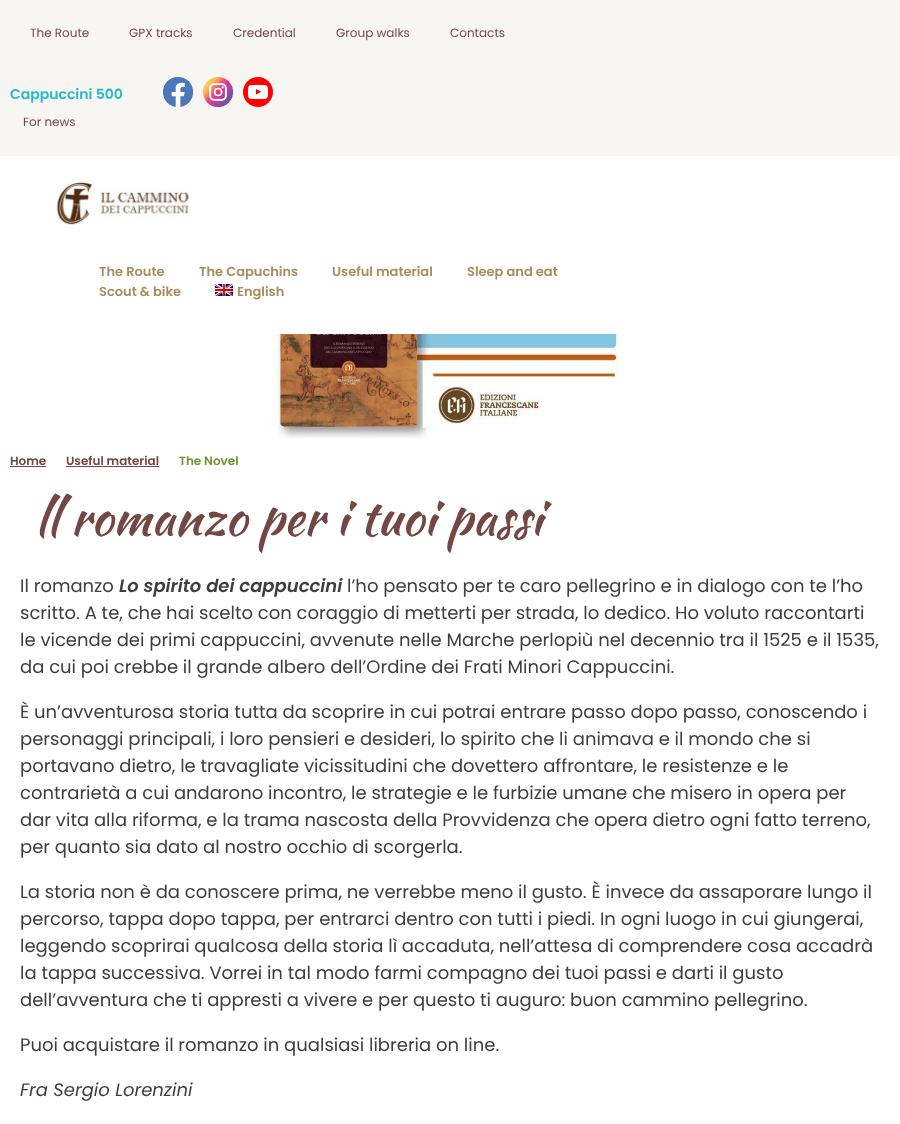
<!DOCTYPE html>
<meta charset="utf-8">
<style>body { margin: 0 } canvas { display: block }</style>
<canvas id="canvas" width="900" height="1124"></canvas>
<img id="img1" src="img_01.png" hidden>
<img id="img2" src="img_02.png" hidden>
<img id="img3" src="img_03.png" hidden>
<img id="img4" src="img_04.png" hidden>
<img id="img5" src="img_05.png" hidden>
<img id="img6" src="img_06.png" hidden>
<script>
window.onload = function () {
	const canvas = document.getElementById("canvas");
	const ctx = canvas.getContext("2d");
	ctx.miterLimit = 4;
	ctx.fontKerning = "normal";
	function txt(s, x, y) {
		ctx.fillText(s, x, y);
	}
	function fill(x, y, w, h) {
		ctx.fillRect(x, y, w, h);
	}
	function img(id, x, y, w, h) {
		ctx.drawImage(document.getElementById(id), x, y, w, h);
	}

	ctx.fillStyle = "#FFFFFF";
	fill(0, 0, 900, 1124);
	ctx.fillStyle = "#F8F6F2";
	fill(0, 0, 900, 156);
	img("img1", 163, 77, 30, 30);
	img("img2", 203, 77, 30, 30);
	img("img3", 243, 77, 30, 30);
	img("img4", 56, 181, 134, 44);
	img("img5", 215, 284, 18, 12);
	img("img6", 271, 334, 348, 105);
	ctx.fillStyle = "#734743";
	fill(10, 466, 36, 1);
	fill(66, 466, 93, 1);
	ctx.font = "12px Poppins";
	txt("The Route", 30, 37);
	txt("GPX tracks", 129, 37);
	txt("Credential", 233, 37);
	txt("Group walks", 336, 37);
	txt("Contacts", 450, 37);
	ctx.font = "600 14px Poppins";
	ctx.fillStyle = "#23B9CE";
	txt("Cappuccini 500", 10, 99);
	ctx.font = "12px Poppins";
	ctx.fillStyle = "#734743";
	txt("For news", 23, 126);
	ctx.font = "600 13px Poppins";
	ctx.fillStyle = "#A78D5E";
	txt("The Route", 99, 276);
	txt("The Capuchins", 199, 276);
	txt("Useful material", 332, 276);
	txt("Sleep and eat", 467, 276);
	txt("Scout & bike", 99, 296);
	txt("English", 237, 296);
	ctx.font = "600 12px Poppins";
	ctx.fillStyle = "#734743";
	txt("Home", 10, 465);
	txt("Useful material", 66, 465);
	ctx.fillStyle = "#719430";
	txt("The Novel", 179, 465);
	ctx.font = "50px Kaushan Script";
	ctx.fillStyle = "#734743";
	txt("ll romanzo per i tuoi passi", 35, 535);
	ctx.font = "18px Poppins";
	ctx.fillStyle = "#3E3E3E";
	txt("Il romanzo", 20, 592);
	ctx.font = "italic 600 18px Poppins";
	txt("Lo spirito dei cappuccini", 119, 592);
	ctx.font = "18px Poppins";
	txt("l’ho pensato per te caro pellegrino e in dialogo con te l’ho", 347, 592);
	txt("scritto. A te, che hai scelto con coraggio di metterti per strada, lo dedico. Ho voluto raccontarti", 20, 619);
	txt("le vicende dei primi cappuccini, avvenute nelle Marche perlopiù nel decennio tra il 1525 e il 1535,", 20, 646);
	txt("da cui poi crebbe il grande albero dell’Ordine dei Frati Minori Cappuccini.", 20, 673);
	txt("È un’avventurosa storia tutta da scoprire in cui potrai entrare passo dopo passo, conoscendo i", 20, 718);
	txt("personaggi principali, i loro pensieri e desideri, lo spirito che li animava e il mondo che si", 20, 745);
	txt("portavano dietro, le travagliate vicissitudini che dovettero affrontare, le resistenze e le", 20, 772);
	txt("contrarietà a cui andarono incontro, le strategie e le furbizie umane che misero in opera per", 20, 799);
	txt("dar vita alla riforma, e la trama nascosta della Provvidenza che opera dietro ogni fatto terreno,", 20, 826);
	txt("per quanto sia dato al nostro occhio di scorgerla.", 20, 853);
	txt("La storia non è da conoscere prima, ne verrebbe meno il gusto. È invece da assaporare lungo il", 20, 898);
	txt("percorso, tappa dopo tappa, per entrarci dentro con tutti i piedi. In ogni luogo in cui giungerai,", 20, 925);
	txt("leggendo scoprirai qualcosa della storia lì accaduta, nell’attesa di comprendere cosa accadrà", 20, 952);
	txt("la tappa successiva. Vorrei in tal modo farmi compagno dei tuoi passi e darti il gusto", 20, 979);
	txt("dell’avventura che ti appresti a vivere e per questo ti auguro: buon cammino pellegrino.", 20, 1006);
	txt("Puoi acquistare il romanzo in qualsiasi libreria on line.", 20, 1051);
	ctx.font = "italic 18px Poppins";
	txt("Fra Sergio Lorenzini", 20, 1096);
};
</script>
